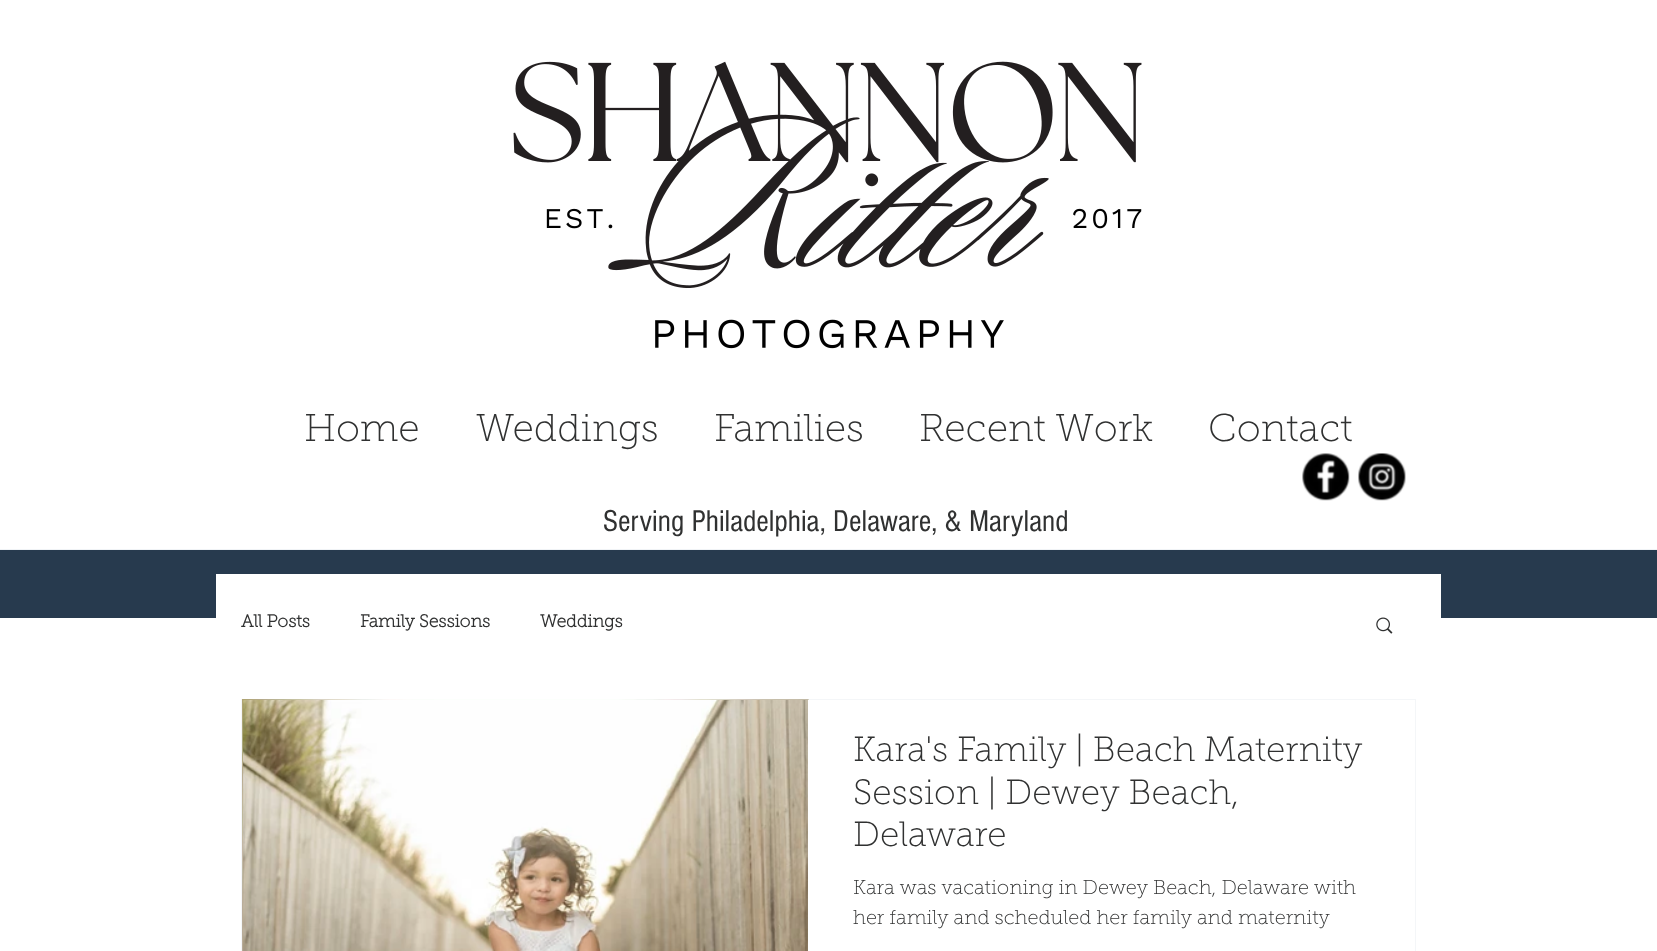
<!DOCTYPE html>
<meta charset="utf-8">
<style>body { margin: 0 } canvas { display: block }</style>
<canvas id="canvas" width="1657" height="951"></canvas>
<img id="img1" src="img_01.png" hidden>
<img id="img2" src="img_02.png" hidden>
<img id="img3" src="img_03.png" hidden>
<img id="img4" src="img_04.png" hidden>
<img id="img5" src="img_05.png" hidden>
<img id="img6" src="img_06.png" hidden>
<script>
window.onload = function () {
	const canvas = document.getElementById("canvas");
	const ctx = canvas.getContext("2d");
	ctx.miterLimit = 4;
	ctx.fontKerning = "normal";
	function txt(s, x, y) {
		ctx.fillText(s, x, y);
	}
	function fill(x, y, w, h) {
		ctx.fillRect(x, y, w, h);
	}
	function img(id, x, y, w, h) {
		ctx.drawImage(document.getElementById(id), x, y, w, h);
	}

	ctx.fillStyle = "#FFFFFF";
	fill(0, 0, 1657, 951);
	img("img1", 513, 61, 629, 288);
	img("img2", 1302, 453, 48, 48);
	img("img3", 1358, 453, 48, 48);
	ctx.fillStyle = "#F0F3F6";
	fill(0, 549, 1657, 1);
	ctx.fillStyle = "#273A4E";
	fill(0, 550, 1657, 68);
	ctx.fillStyle = "#FFFFFF";
	fill(216, 574, 1225, 44);
	img("img4", 1376, 617, 17, 17);
	ctx.strokeStyle = "#F4F6F8";
	ctx.strokeRect(241.5, 699.5, 1174, 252);
	img("img5", 242, 699, 567, 252);
	img("img6", 243, 700, 565, 251);
	fill(808, 700, 1, 251);
	ctx.font = "100 38.75px 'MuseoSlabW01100'";
	ctx.fillStyle = "#303131";
	txt("Home", 304, 441);
	txt("Weddings", 476, 441);
	txt("Families", 714, 441);
	txt("Recent Work", 919, 441);
	txt("Contact", 1208, 441);
	ctx.font = "31.25px 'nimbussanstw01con'";
	txt("Serving Philadelphia, Delaware, & Maryland", 603, 531);
	ctx.font = "bold 17.5px 'MuseoSlabW01100'";
	txt("All Posts", 241, 627);
	txt("Family Sessions", 360, 627);
	txt("Weddings", 540, 627);
	ctx.font = "100 35px 'MuseoSlabW01100'";
	txt("Kara's Family | Beach Maternity", 853, 761);
	txt("Session | Dewey Beach,", 853, 804);
	txt("Delaware", 853, 846);
	ctx.font = "100 20px 'MuseoSlabW01100'";
	txt("Kara was vacationing in Dewey Beach, Delaware with", 853, 894);
	txt("her family and scheduled her family and maternity", 853, 924);
};
</script>
